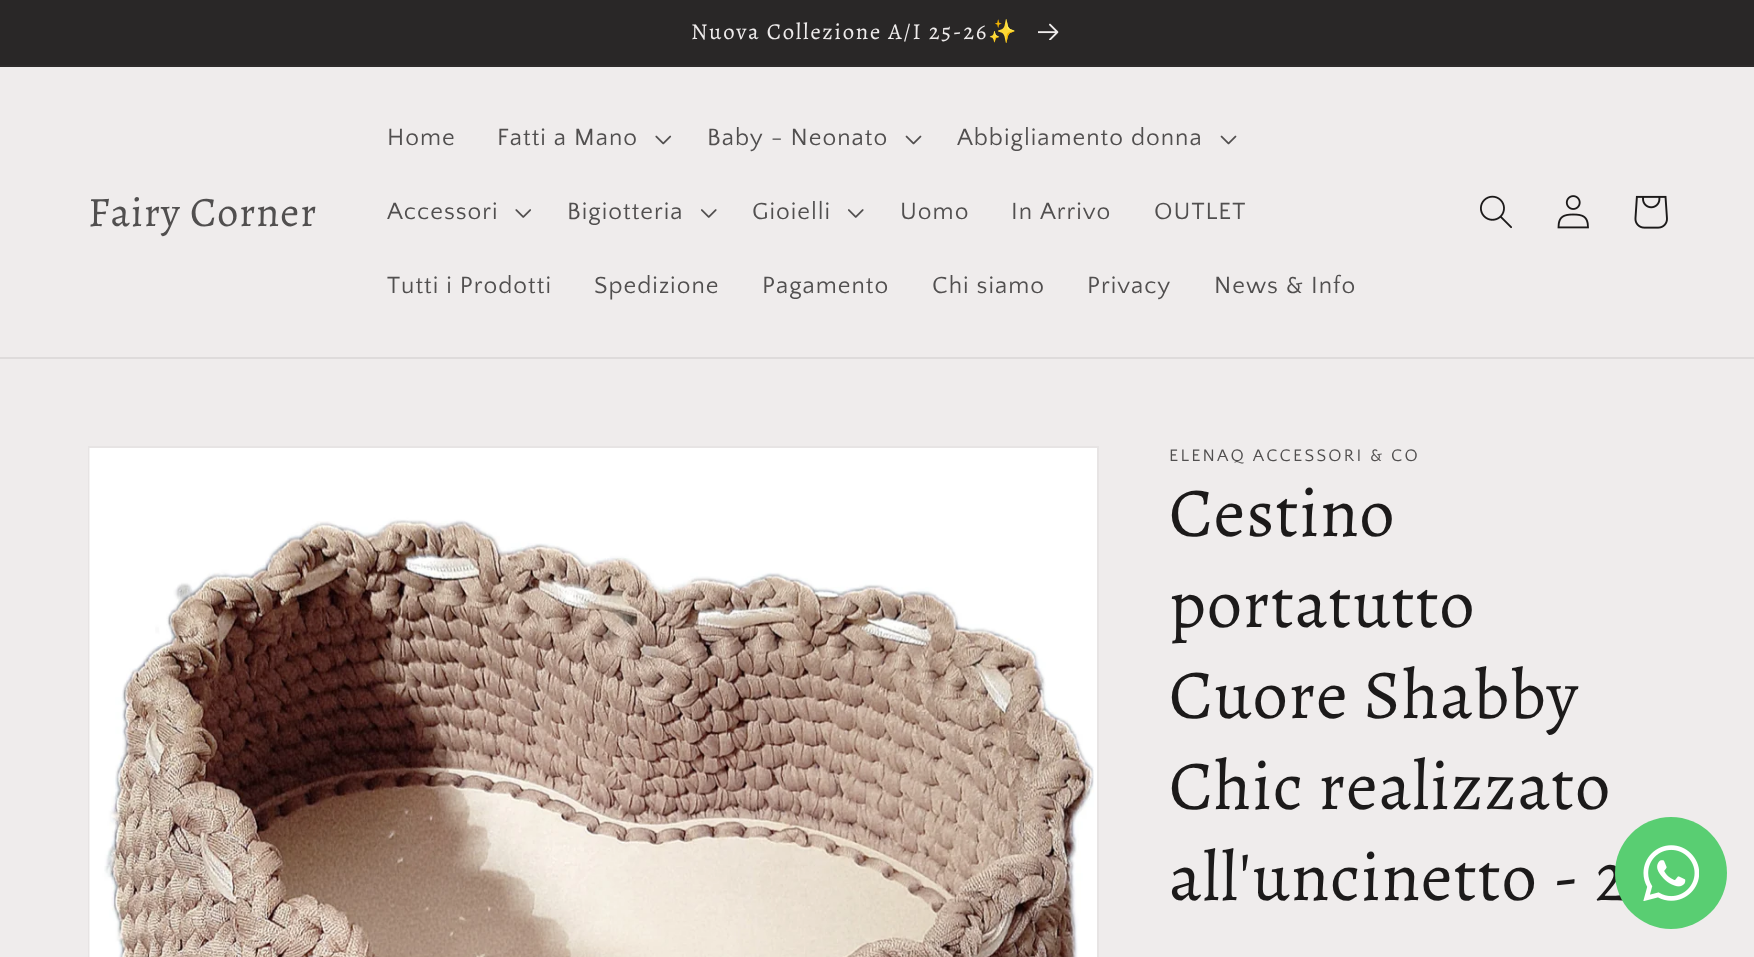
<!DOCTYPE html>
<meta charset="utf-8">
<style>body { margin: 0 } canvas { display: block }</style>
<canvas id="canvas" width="1754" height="957"></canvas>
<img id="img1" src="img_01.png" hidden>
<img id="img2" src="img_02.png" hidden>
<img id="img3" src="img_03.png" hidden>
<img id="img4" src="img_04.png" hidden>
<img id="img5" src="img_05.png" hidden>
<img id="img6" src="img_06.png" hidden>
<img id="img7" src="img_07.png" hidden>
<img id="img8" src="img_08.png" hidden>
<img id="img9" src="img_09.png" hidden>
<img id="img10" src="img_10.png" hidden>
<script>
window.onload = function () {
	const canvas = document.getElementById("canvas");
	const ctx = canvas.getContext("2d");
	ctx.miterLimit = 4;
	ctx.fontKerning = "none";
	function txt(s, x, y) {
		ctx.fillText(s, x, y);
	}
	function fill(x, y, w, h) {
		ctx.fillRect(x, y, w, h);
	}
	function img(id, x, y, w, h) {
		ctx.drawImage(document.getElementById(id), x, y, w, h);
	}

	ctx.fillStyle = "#EFECEC";
	fill(0, 0, 1754, 957);
	ctx.fillStyle = "#2D2B2B";
	fill(0, 65, 1754, 2);
	ctx.fillStyle = "#292727";
	fill(0, 0, 1754, 65);
	img("img1", 1038, 23, 21, 17);
	ctx.fillStyle = "#DEDBDB";
	fill(0, 357, 1754, 2);
	img("img2", 655, 135, 17, 10);
	img("img3", 905, 135, 17, 10);
	img("img3", 1220, 135, 17, 10);
	img("img4", 515, 209, 16, 9);
	img("img5", 701, 209, 16, 9);
	img("img5", 848, 209, 16, 9);
	img("img6", 1480, 195, 32, 34);
	img("img7", 1557, 195, 32, 34);
	img("img8", 1634, 195, 34, 34);
	ctx.strokeStyle = "#E7E4E4";
	ctx.lineWidth = 2;
	ctx.strokeRect(89, 447, 1009, 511);
	img("img9", 89, 448, 1008, 509);
	ctx.letterSpacing = "1.75px";
	ctx.font = "22.75px Alegreya";
	ctx.fillStyle = "#EFECEC";
	txt("Nuova Collezione A/I 25-26", 691, 39);
	ctx.font = "22.75px Noto Color Emoji";
	txt("✨", 988, 39);
	ctx.letterSpacing = "1px";
	ctx.font = "42px Alegreya";
	ctx.fillStyle = "#514F4F";
	txt("Fairy Corner", 88, 226);
	ctx.font = "24.5px Quattrocento Sans";
	txt("Home", 387, 145);
	txt("Fatti a Mano", 497, 145);
	txt("Baby - Neonato", 707, 145);
	txt("Abbigliamento donna", 957, 145);
	txt("Accessori", 387, 219);
	txt("Bigiotteria", 567, 219);
	txt("Gioielli", 752, 219);
	txt("Uomo", 900, 219);
	txt("In Arrivo", 1011, 219);
	txt("OUTLET", 1154, 219);
	txt("Tutti i Prodotti", 387, 293);
	txt("Spedizione", 594, 293);
	txt("Pagamento", 762, 293);
	txt("Chi siamo", 932, 293);
	txt("Privacy", 1087, 293);
	txt("News & Info", 1214, 293);
	ctx.letterSpacing = "2.25px";
	ctx.font = "17.5px Quattrocento Sans";
	txt("ELENAQ ACCESSORI & CO", 1169, 461);
	ctx.letterSpacing = "1px";
	ctx.font = "70px Alegreya";
	ctx.fillStyle = "#1C1A1A";
	txt("Cestino", 1169, 536);
	txt("portatutto", 1169, 627);
	txt("Cuore Shabby", 1169, 718);
	txt("Chic realizzato", 1169, 809);
	txt("all'uncinetto - 2", 1169, 900);
	ctx.fillStyle = "#59CE72";
	ctx.beginPath();
	ctx.arc(1671, 873, 56, 0, Math.PI * 2);
	ctx.fill();
	img("img10", 1643, 845, 56, 56);
};
</script>
